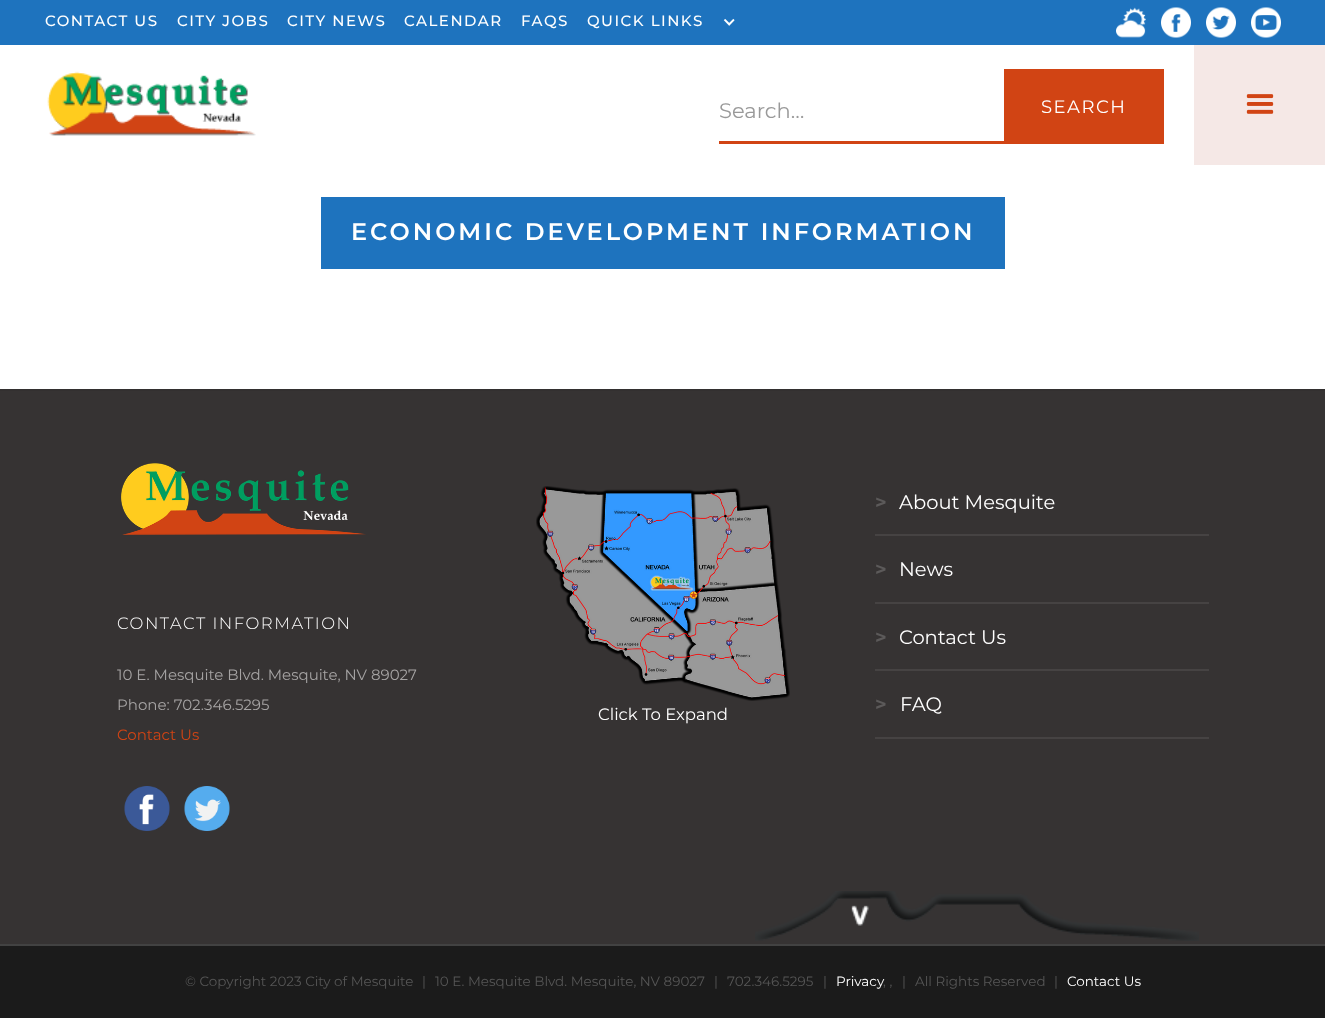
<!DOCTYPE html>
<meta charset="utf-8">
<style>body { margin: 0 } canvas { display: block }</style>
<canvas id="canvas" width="1325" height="1018"></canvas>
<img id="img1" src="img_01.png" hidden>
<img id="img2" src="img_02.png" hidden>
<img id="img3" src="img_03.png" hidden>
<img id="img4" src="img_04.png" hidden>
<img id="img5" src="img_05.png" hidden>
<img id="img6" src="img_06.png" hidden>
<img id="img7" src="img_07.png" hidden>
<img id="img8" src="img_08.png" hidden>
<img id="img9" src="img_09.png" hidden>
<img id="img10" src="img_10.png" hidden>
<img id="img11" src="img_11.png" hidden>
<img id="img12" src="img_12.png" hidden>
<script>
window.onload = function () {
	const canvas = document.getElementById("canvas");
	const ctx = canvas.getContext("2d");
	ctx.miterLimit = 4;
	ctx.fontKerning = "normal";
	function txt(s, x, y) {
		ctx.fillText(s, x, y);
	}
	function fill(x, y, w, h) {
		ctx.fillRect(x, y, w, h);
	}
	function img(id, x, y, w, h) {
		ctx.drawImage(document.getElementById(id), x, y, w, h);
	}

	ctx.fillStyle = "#FFFFFF";
	fill(0, 0, 1325, 1018);
	ctx.fillStyle = "#1E73BE";
	fill(0, 0, 1325, 45);
	img("img1", 723, 18, 12, 8);
	img("img2", 1116, 7, 30, 31);
	img("img3", 1161, 7, 30, 31);
	img("img4", 1206, 7, 30, 31);
	img("img5", 1251, 7, 30, 31);
	img("img6", 47, 71, 209, 65);
	ctx.fillStyle = "#D14414";
	fill(719, 141, 285, 3);
	fill(1004, 69, 160, 75);
	ctx.fillStyle = "#F5E8E6";
	fill(1194, 45, 131, 120);
	img("img7", 1246, 94, 28, 20);
	ctx.fillStyle = "#1E73BE";
	fill(321, 197, 684, 72);
	ctx.fillStyle = "#363333";
	fill(0, 391, 1325, 553);
	ctx.fillStyle = "#333030";
	fill(0, 389, 1325, 2);
	img("img8", 121, 463, 245, 72);
	img("img9", 124, 786, 46, 45);
	img("img10", 184, 786, 46, 45);
	img("img11", 536, 486, 254, 215);
	ctx.fillStyle = "#464343";
	fill(875, 534, 334, 2);
	fill(875, 602, 334, 2);
	fill(875, 669, 334, 2);
	fill(875, 737, 334, 2);
	img("img12", 755, 891, 444, 50);
	ctx.fillStyle = "#1B1B1B";
	fill(0, 946, 1325, 72);
	ctx.fillStyle = "#424242";
	fill(0, 944, 1325, 2);
	ctx.letterSpacing = "1.5px";
	ctx.font = "500 15px Montserrat";
	ctx.fillStyle = "#FFFFFF";
	txt("CONTACT US", 45, 26);
	txt("CITY JOBS", 177, 26);
	txt("CITY NEWS", 287, 26);
	txt("CALENDAR", 404, 26);
	txt("FAQS", 521, 26);
	txt("QUICK LINKS", 587, 26);
	ctx.letterSpacing = "0px";
	ctx.font = "21px Montserrat";
	ctx.fillStyle = "#999999";
	txt("Search…", 719, 118);
	ctx.letterSpacing = "1.5px";
	ctx.font = "18px Montserrat";
	ctx.fillStyle = "#FFFFFF";
	txt("SEARCH", 1041, 113);
	ctx.letterSpacing = "3px";
	ctx.font = "600 24px Montserrat";
	txt("ECONOMIC DEVELOPMENT INFORMATION", 351, 240);
	ctx.letterSpacing = "1.5px";
	ctx.font = "300 16.5px Montserrat";
	txt("CONTACT INFORMATION", 117, 629);
	ctx.letterSpacing = "0px";
	ctx.font = "15px Montserrat";
	ctx.fillStyle = "#A5A3A3";
	txt("10 E. Mesquite Blvd. Mesquite, NV 89027", 117, 680);
	txt("Phone: 702.346.5295", 117, 710);
	ctx.fillStyle = "#D14414";
	txt("Contact Us", 117, 740);
	ctx.font = "16.5px Montserrat";
	ctx.fillStyle = "#FFFFFF";
	txt("Click To Expand", 598, 720);
	ctx.font = "bold 19.5px Montserrat";
	ctx.fillStyle = "#5C5A5A";
	txt(">", 875, 509);
	ctx.font = "19.5px Montserrat";
	ctx.fillStyle = "#FFFFFF";
	txt("About Mesquite", 899, 509);
	ctx.font = "bold 19.5px Montserrat";
	ctx.fillStyle = "#5C5A5A";
	txt(">", 875, 576);
	ctx.font = "19.5px Montserrat";
	ctx.fillStyle = "#FFFFFF";
	txt("News", 899, 576);
	ctx.font = "bold 19.5px Montserrat";
	ctx.fillStyle = "#5C5A5A";
	txt(">", 875, 644);
	ctx.font = "19.5px Montserrat";
	ctx.fillStyle = "#FFFFFF";
	txt("Contact Us", 899, 644);
	ctx.font = "bold 19.5px Montserrat";
	ctx.fillStyle = "#5C5A5A";
	txt(">", 875, 711);
	ctx.font = "19.5px Montserrat";
	ctx.fillStyle = "#FFFFFF";
	txt("FAQ", 900, 711);
	ctx.font = "13.5px Montserrat";
	ctx.fillStyle = "#565656";
	txt("© Copyright 2023 City of Mesquite", 185, 986);
	txt("|", 422, 986);
	txt("10 E. Mesquite Blvd. Mesquite, NV 89027", 435, 986);
	txt("|", 714, 986);
	txt("702.346.5295", 727, 986);
	txt("|", 823, 986);
	ctx.fillStyle = "#FFFFFF";
	txt("Privacy", 836, 986);
	ctx.fillStyle = "#565656";
	txt(", ,", 883, 986);
	txt("|", 902, 986);
	txt("All Rights Reserved", 915, 986);
	txt("|", 1054, 986);
	ctx.fillStyle = "#FFFFFF";
	txt("Contact Us", 1067, 986);
};
</script>
